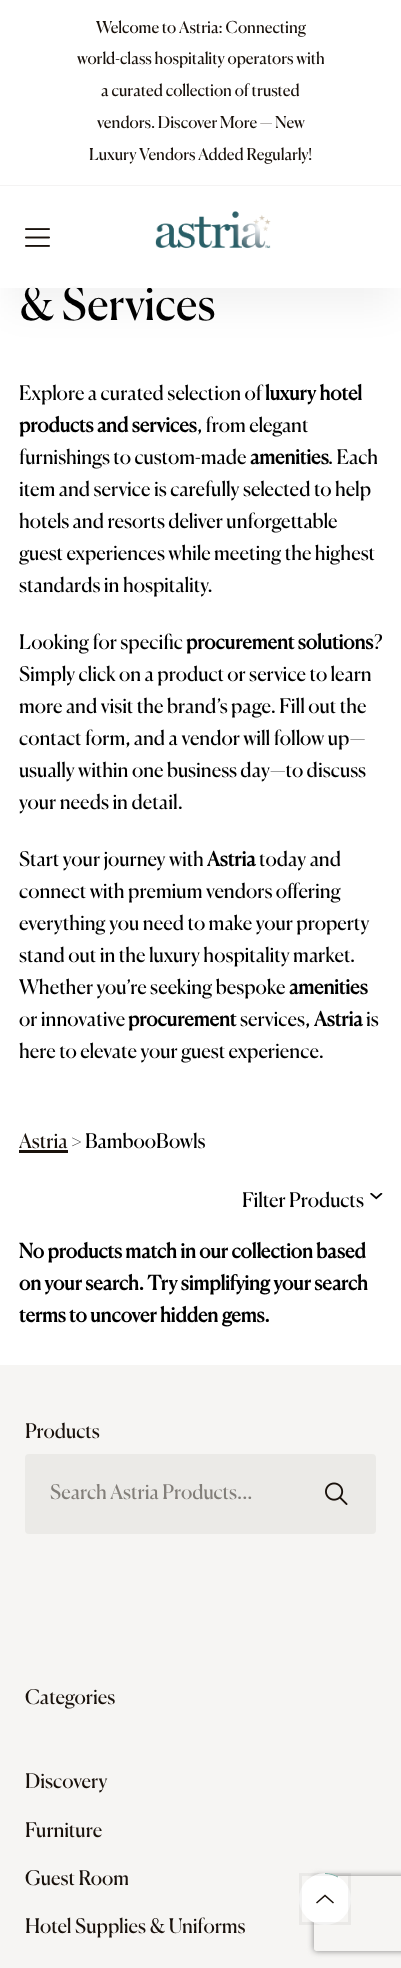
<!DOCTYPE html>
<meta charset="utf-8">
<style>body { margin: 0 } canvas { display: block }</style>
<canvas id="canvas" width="401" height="1968"></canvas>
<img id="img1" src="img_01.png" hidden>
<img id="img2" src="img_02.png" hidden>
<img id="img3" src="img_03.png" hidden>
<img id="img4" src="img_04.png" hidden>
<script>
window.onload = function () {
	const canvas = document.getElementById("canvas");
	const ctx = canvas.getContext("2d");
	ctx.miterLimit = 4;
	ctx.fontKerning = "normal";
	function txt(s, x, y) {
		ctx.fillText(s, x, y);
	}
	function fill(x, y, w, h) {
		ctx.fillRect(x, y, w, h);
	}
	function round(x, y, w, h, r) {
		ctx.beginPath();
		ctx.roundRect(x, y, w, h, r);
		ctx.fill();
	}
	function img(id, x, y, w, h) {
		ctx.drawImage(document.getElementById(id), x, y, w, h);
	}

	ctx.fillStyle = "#FFFFFF";
	fill(0, 0, 401, 1968);
	ctx.save();
	ctx.beginPath();
	ctx.moveTo(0, 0);
	ctx.lineTo(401, 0);
	ctx.lineTo(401, 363);
	ctx.lineTo(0, 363);
	ctx.closePath();
	ctx.moveTo(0, 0);
	ctx.lineTo(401, 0);
	ctx.lineTo(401, 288);
	ctx.lineTo(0, 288);
	ctx.closePath();
	ctx.clip("evenodd");
	ctx.fillStyle = "rgba(0, 0, 0, 0.05)";
	ctx.filter = "blur(18px)";
	ctx.beginPath();
	ctx.rect(8, 35, 386, 273);
	ctx.fill();
	ctx.filter = "none";
	ctx.restore();
	ctx.fillStyle = "#F4F3F3";
	fill(0, 185, 401, 1);
	img("img1", 25, 228, 25, 19);
	img("img2", 155, 211, 116, 38);
	ctx.fillStyle = "#19110B";
	fill(19, 1150, 49, 3);
	img("img3", 370, 1193, 13, 7);
	ctx.fillStyle = "#F6F5F3";
	fill(0, 1365, 401, 603);
	ctx.fillStyle = "#EBEAE7";
	round(25, 1454, 351, 80, 4);
	img("img4", 325, 1482, 23, 23);
	ctx.save();
	ctx.beginPath();
	ctx.moveTo(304, 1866);
	ctx.lineTo(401, 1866);
	ctx.lineTo(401, 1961);
	ctx.lineTo(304, 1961);
	ctx.closePath();
	ctx.moveTo(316.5, 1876);
	ctx.lineTo(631.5, 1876);
	ctx.bezierCurveTo(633, 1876, 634, 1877, 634, 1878.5);
	ctx.lineTo(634, 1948.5);
	ctx.bezierCurveTo(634, 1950, 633, 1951, 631.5, 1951);
	ctx.lineTo(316.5, 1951);
	ctx.bezierCurveTo(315, 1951, 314, 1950, 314, 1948.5);
	ctx.lineTo(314, 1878.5);
	ctx.bezierCurveTo(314, 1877, 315, 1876, 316.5, 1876);
	ctx.closePath();
	ctx.clip("evenodd");
	ctx.fillStyle = "#808080";
	ctx.filter = "blur(3px)";
	ctx.beginPath();
	ctx.roundRect(314, 1876, 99, 75, 2.5);
	ctx.fill();
	ctx.filter = "none";
	ctx.restore();
	ctx.fillStyle = "#FFFFFF";
	ctx.beginPath();
	ctx.arc(325, 1899, 26, 0, Math.PI * 2);
	ctx.fill();
	ctx.strokeStyle = "rgba(25, 17, 11, 0.05)";
	ctx.lineWidth = 3;
	ctx.strokeRect(300.5, 1874.5, 49, 49);
	ctx.beginPath();
	ctx.moveTo(325, 1873.5);
	ctx.bezierCurveTo(330, 1873.5, 334.5, 1875, 338, 1877);
	ctx.strokeStyle = "#7EADA4";
	ctx.lineWidth = 1;
	ctx.stroke();
	ctx.fillStyle = "#19110B";
	ctx.beginPath();
	ctx.moveTo(333, 1903.5);
	ctx.lineTo(334, 1902.5);
	ctx.lineTo(325, 1894.5);
	ctx.lineTo(316, 1902.5);
	ctx.lineTo(317, 1903.5);
	ctx.lineTo(325, 1896.5);
	ctx.closePath();
	ctx.fill();
	ctx.font = "16.25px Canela";
	txt("Welcome to Astria: Connecting", 96, 33);
	txt("world-class hospitality operators with", 77, 64);
	txt("a curated collection of trusted", 101, 96);
	txt("vendors. Discover More — New", 97, 128);
	txt("Luxury Vendors Added Regularly!", 89, 160);
	ctx.font = "45px Canela";
	ctx.fillStyle = "#000000";
	txt("& Services", 19, 320);
	ctx.fillStyle = "rgba(255, 255, 255, 0.95)";
	fill(8, 286, 386, 2);
	ctx.font = "20px Canela";
	ctx.fillStyle = "#000000";
	txt("Explore a curated selection of", 19, 400);
	ctx.font = "bold 20px Canela";
	txt("luxury hotel", 265, 400);
	txt("products and services", 19, 432);
	ctx.font = "20px Canela";
	txt(", from elegant", 197, 432);
	txt("furnishings to custom-made", 19, 464);
	ctx.font = "bold 20px Canela";
	txt("amenities", 250, 464);
	ctx.font = "20px Canela";
	txt(". Each", 328, 464);
	txt("item and service is carefully selected to help", 19, 496);
	txt("hotels and resorts deliver unforgettable", 19, 528);
	txt("guest experiences while meeting the highest", 19, 560);
	txt("standards in hospitality.", 19, 592);
	txt("Looking for specific", 19, 649);
	ctx.font = "bold 20px Canela";
	txt("procurement solutions", 186, 649);
	ctx.font = "20px Canela";
	txt("?", 374, 649);
	txt("Simply click on a product or service to learn", 19, 681);
	txt("more and visit the brand’s page. Fill out the", 19, 713);
	txt("contact form, and a vendor will follow up—", 19, 745);
	txt("usually within one business day—to discuss", 19, 777);
	txt("your needs in detail.", 19, 809);
	txt("Start your journey with", 19, 866);
	ctx.font = "bold 20px Canela";
	txt("Astria", 207, 866);
	ctx.font = "20px Canela";
	txt("today and", 259, 866);
	txt("connect with premium vendors offering", 19, 898);
	txt("everything you need to make your property", 19, 930);
	txt("stand out in the luxury hospitality market.", 19, 962);
	txt("Whether you’re seeking bespoke", 19, 994);
	ctx.font = "bold 20px Canela";
	txt("amenities", 289, 994);
	ctx.font = "20px Canela";
	txt("or innovative", 19, 1026);
	ctx.font = "bold 20px Canela";
	txt("procurement", 128, 1026);
	ctx.font = "20px Canela";
	txt("services,", 240, 1026);
	ctx.font = "bold 20px Canela";
	txt("Astria", 314, 1026);
	ctx.font = "20px Canela";
	txt("is", 366, 1026);
	txt("here to elevate your guest experience.", 19, 1058);
	ctx.fillStyle = "#19110B";
	txt("Astria", 19, 1148);
	ctx.fillStyle = "#000000";
	txt("> BambooBowls", 71, 1148);
	txt("Filter Products", 242, 1207);
	ctx.font = "bold 20px Canela";
	txt("No products match in our collection based", 19, 1258);
	txt("on your search. Try simplifying your search", 19, 1290);
	txt("terms to uncover hidden gems.", 19, 1322);
	ctx.font = "20px Canela";
	ctx.fillStyle = "#19110B";
	txt("Products", 25, 1438);
	ctx.save();
	ctx.beginPath();
	ctx.rect(50, 1484, 301, 20);
	ctx.clip();
	ctx.fillStyle = "#827E79";
	txt("Search Astria Products...", 50, 1499);
	ctx.restore();
	txt("Categories", 25, 1704);
	txt("Discovery", 25, 1788);
	txt("Furniture", 25, 1837);
	txt("Guest Room", 25, 1885);
	txt("Hotel Supplies & Uniforms", 25, 1933);
};
</script>
